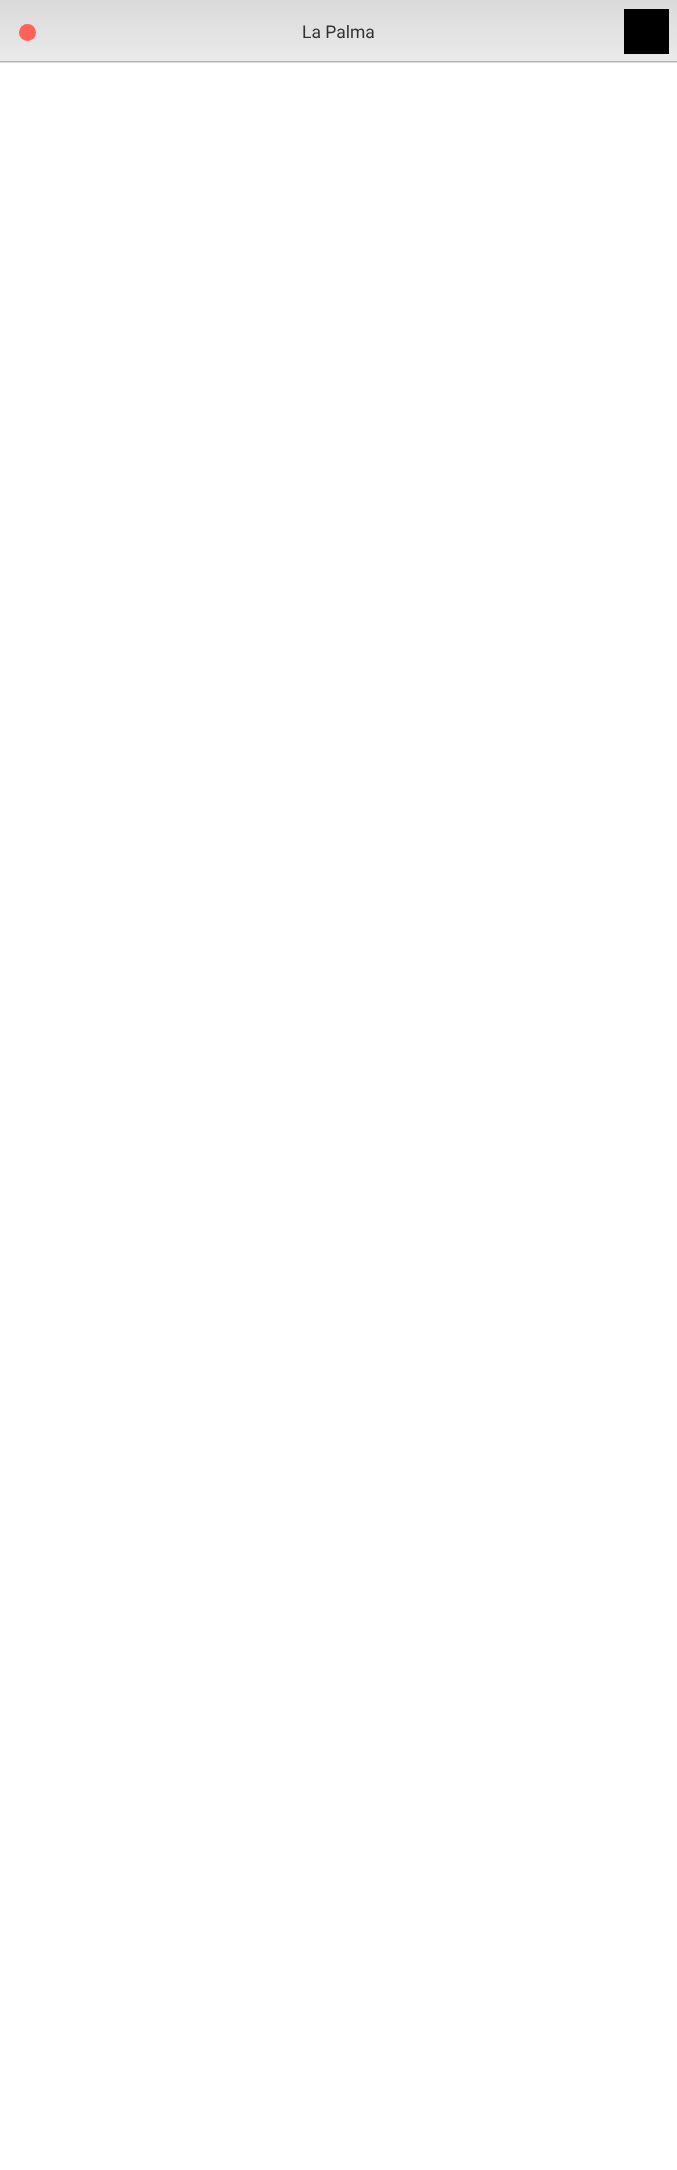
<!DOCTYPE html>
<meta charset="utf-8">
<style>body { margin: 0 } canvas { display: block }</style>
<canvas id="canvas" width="677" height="2170"></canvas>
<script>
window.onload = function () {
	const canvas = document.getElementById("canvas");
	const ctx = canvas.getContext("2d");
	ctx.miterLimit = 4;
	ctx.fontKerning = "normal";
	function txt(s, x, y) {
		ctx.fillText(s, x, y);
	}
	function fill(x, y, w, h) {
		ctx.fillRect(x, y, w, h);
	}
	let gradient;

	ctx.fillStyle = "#FFFFFF";
	fill(0, 0, 677, 2170);
	gradient = ctx.createLinearGradient(339, 0, 339, 61);
	gradient.addColorStop(0.01, "#DADADA");
	gradient.addColorStop(1, "#EAEAEA");
	ctx.fillStyle = gradient;
	fill(0, 0, 677, 61);
	gradient = ctx.createLinearGradient(339, 61, 339, 123);
	gradient.addColorStop(0.01, "#DADADA");
	gradient.addColorStop(1, "#EAEAEA");
	ctx.fillStyle = gradient;
	fill(0, 62, 677, 1);
	ctx.fillStyle = "#B4B4B4";
	fill(0, 61, 677, 1);
	ctx.fillStyle = "#FF6259";
	ctx.beginPath();
	ctx.arc(27.5, 32.5, 8.5, 0, Math.PI * 2);
	ctx.fill();
	ctx.fillStyle = "#000000";
	fill(624, 9, 45, 45);
	ctx.font = "17.5px Roboto";
	ctx.fillStyle = "#333333";
	txt("La Palma", 302, 38);
};
</script>
